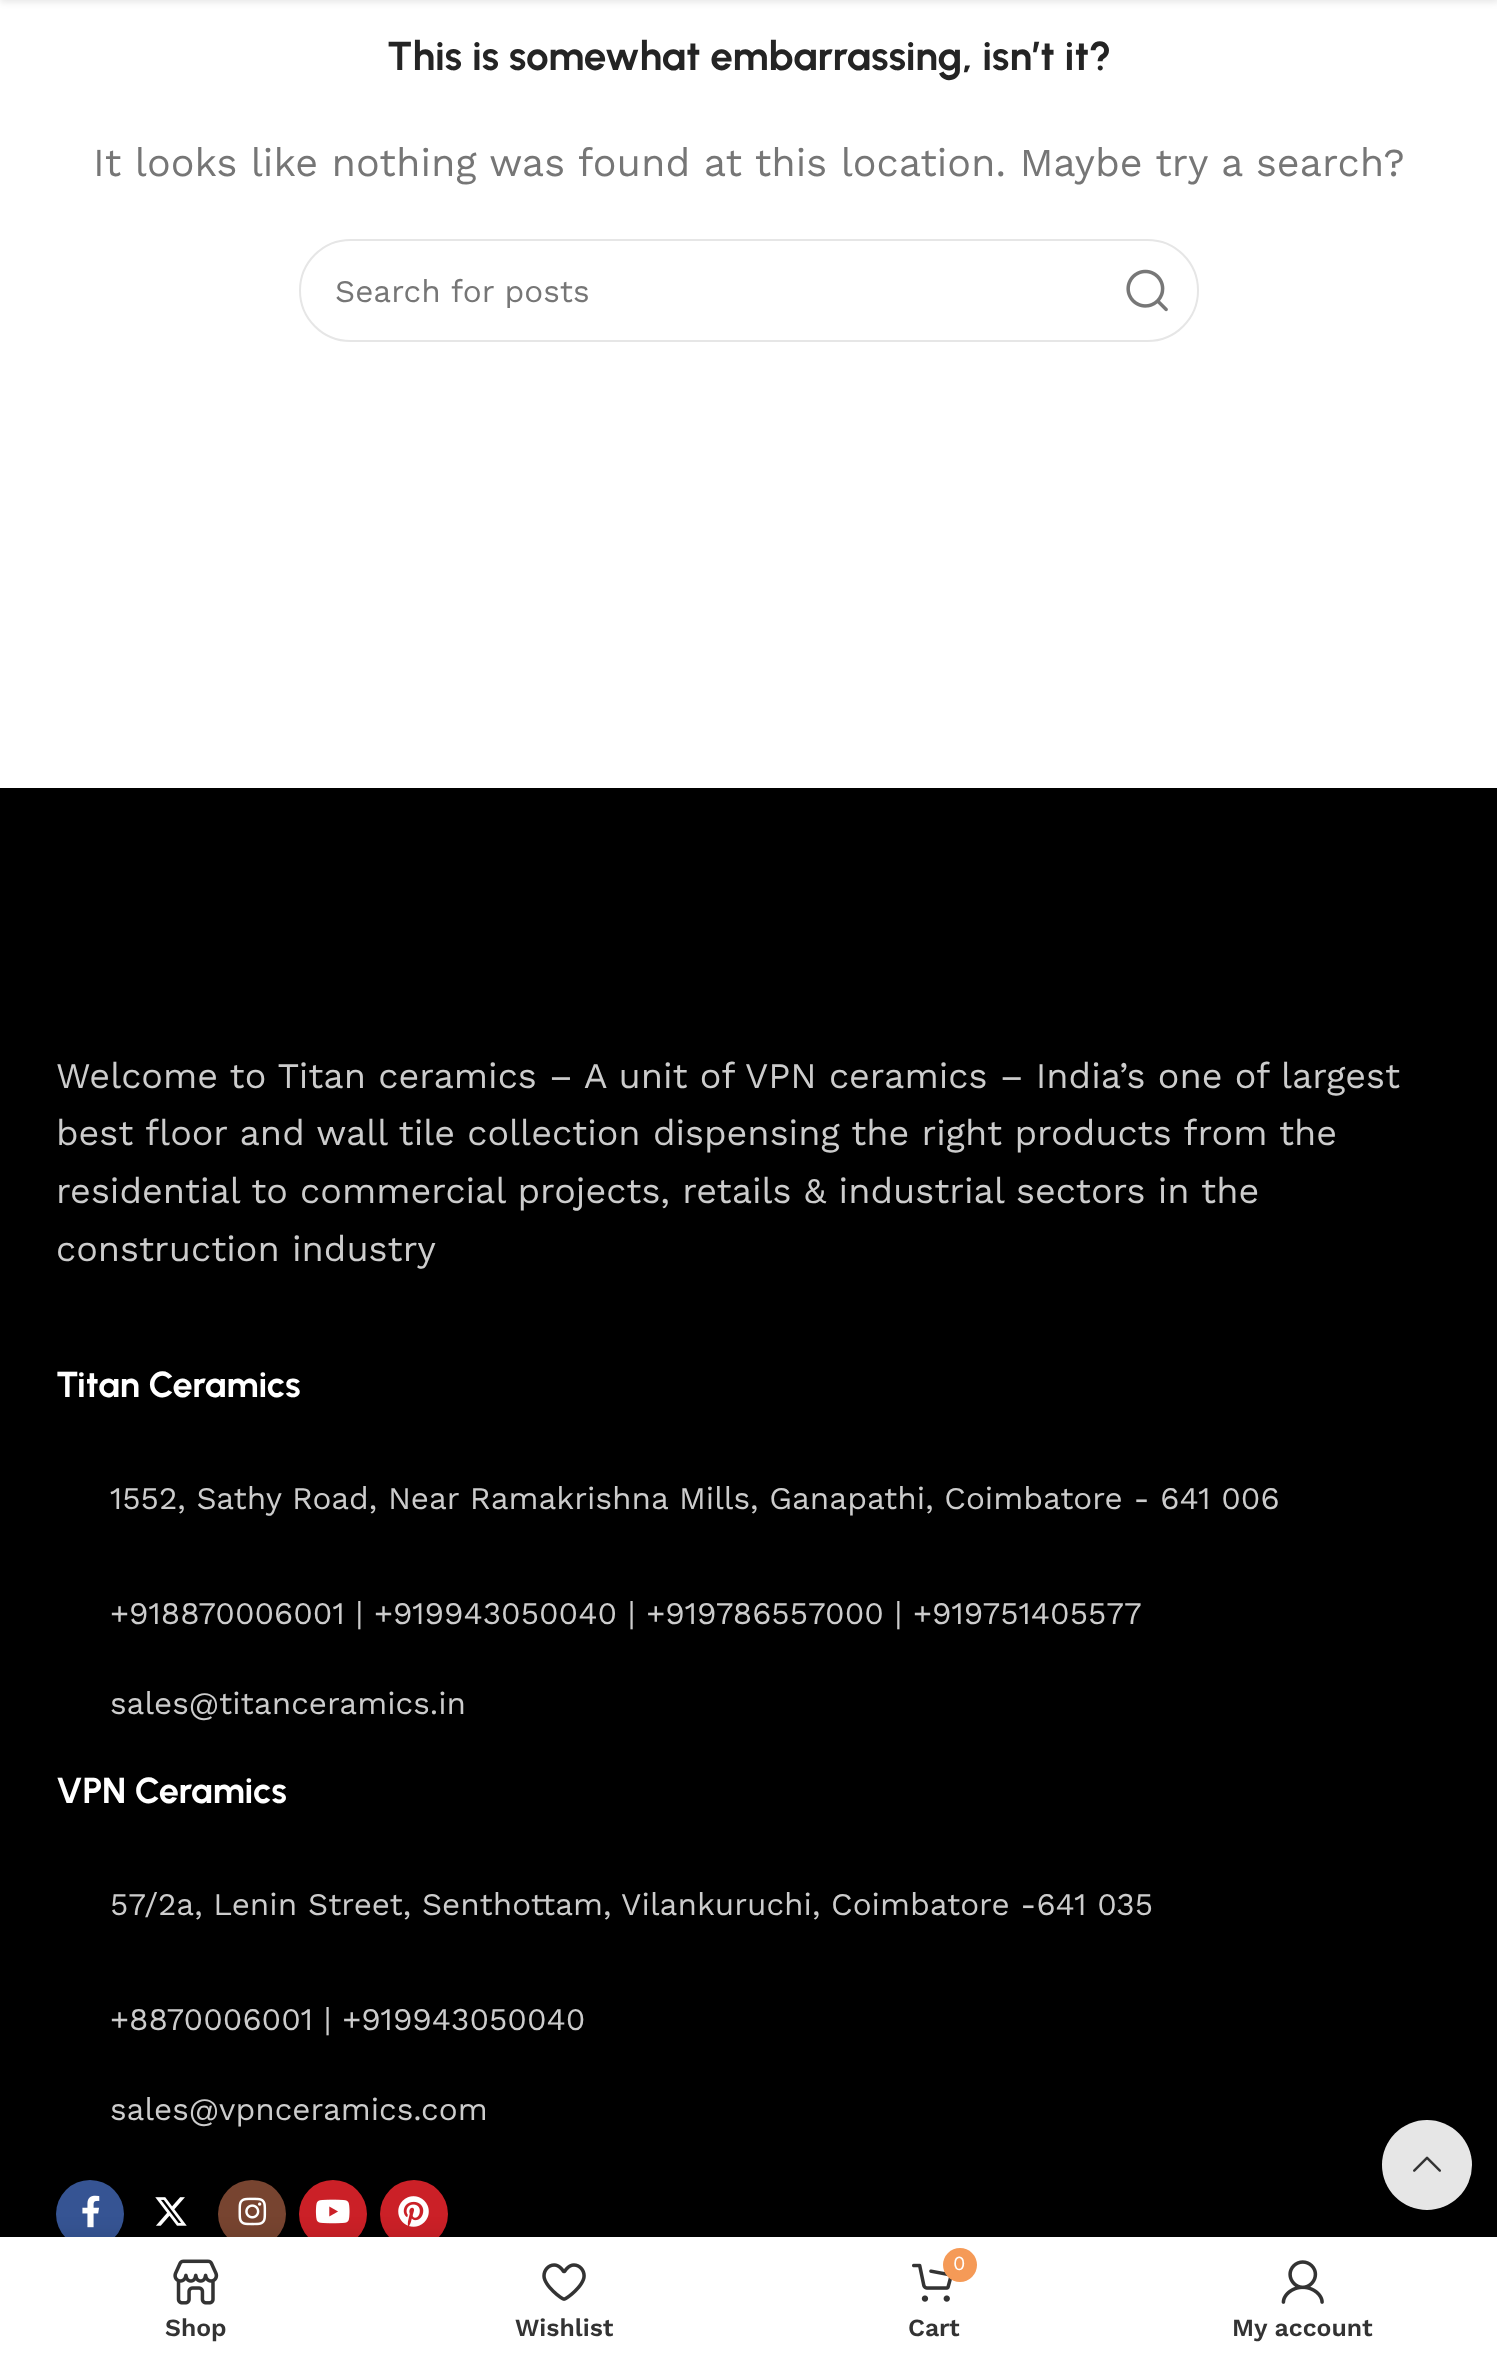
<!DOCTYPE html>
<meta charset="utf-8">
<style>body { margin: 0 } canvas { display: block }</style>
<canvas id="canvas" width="1497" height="2359"></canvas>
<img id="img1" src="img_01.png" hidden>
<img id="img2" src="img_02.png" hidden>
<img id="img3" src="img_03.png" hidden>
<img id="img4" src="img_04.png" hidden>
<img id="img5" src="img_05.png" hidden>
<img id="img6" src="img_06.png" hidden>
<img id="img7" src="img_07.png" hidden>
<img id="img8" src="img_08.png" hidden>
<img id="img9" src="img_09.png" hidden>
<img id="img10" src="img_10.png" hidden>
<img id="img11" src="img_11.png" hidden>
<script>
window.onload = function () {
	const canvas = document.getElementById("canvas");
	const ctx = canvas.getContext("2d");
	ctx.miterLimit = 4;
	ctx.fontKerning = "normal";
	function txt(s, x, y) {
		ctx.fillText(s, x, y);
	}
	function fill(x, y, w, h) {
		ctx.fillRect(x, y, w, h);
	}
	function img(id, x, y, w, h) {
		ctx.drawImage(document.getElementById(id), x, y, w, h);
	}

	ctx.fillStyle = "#FFFFFF";
	fill(0, 0, 1497, 2359);
	ctx.fillStyle = "rgba(0, 0, 0, 0.1)";
	ctx.filter = "blur(3.5px)";
	ctx.beginPath();
	ctx.rect(0, -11, 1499, 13);
	ctx.fill();
	ctx.filter = "none";
	ctx.beginPath();
	ctx.roundRect(300, 240, 898, 101, 50.5);
	ctx.strokeStyle = "#E6E6E6";
	ctx.lineWidth = 2;
	ctx.stroke();
	img("img1", 1126, 269, 42, 43);
	ctx.fillStyle = "#000000";
	fill(0, 788, 1497, 1449);
	ctx.fillStyle = "#365493";
	ctx.beginPath();
	ctx.arc(90, 2214, 34, 0, Math.PI * 2);
	ctx.fill();
	img("img2", 82, 2195, 18, 33);
	img("img3", 155, 2197, 32, 29);
	ctx.fillStyle = "#774430";
	ctx.beginPath();
	ctx.arc(252, 2214, 34, 0, Math.PI * 2);
	ctx.fill();
	img("img4", 238, 2197, 29, 29);
	ctx.fillStyle = "#CB2027";
	ctx.beginPath();
	ctx.arc(333, 2214, 34, 0, Math.PI * 2);
	ctx.fill();
	img("img5", 315, 2199, 35, 25);
	ctx.beginPath();
	ctx.arc(414, 2214, 34, 0, Math.PI * 2);
	ctx.fill();
	img("img6", 398, 2196, 31, 31);
	ctx.fillStyle = "#E6E6E6";
	ctx.beginPath();
	ctx.arc(1427, 2165, 45, 0, Math.PI * 2);
	ctx.fill();
	img("img7", 1413, 2156, 28, 16);
	ctx.fillStyle = "rgba(0, 0, 0, 0.12)";
	ctx.filter = "blur(10px)";
	ctx.beginPath();
	ctx.rect(0, 2237, 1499, 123);
	ctx.fill();
	ctx.filter = "none";
	ctx.fillStyle = "#FFFFFF";
	fill(0, 2237, 1497, 122);
	img("img8", 173, 2259, 46, 46);
	img("img9", 542, 2263, 44, 38);
	img("img10", 912, 2263, 40, 39);
	ctx.fillStyle = "#F59A57";
	ctx.beginPath();
	ctx.arc(960, 2265, 17, 0, Math.PI * 2);
	ctx.fill();
	img("img11", 1281, 2260, 43, 44);
	ctx.font = "bold 40.5px Urbanist";
	ctx.fillStyle = "#242424";
	txt("This is somewhat embarrassing, isn’t it?", 387, 70);
	ctx.font = "39.6px Work Sans";
	ctx.fillStyle = "#767676";
	txt("It looks like nothing was found at this location. Maybe try a search?", 93, 176);
	ctx.save();
	ctx.beginPath();
	ctx.rect(335, 272, 759, 36);
	ctx.clip();
	ctx.font = "31.5px Work Sans";
	txt("Search for posts", 335, 302);
	ctx.restore();
	ctx.font = "36px Work Sans";
	ctx.fillStyle = "#CCCCCC";
	txt("Welcome to Titan ceramics – A unit of VPN ceramics – India’s one of largest", 56, 1088);
	txt("best floor and wall tile collection dispensing the right products from the", 56, 1145);
	txt("residential to commercial projects, retails & industrial sectors in the", 56, 1203);
	txt("construction industry", 56, 1261);
	ctx.font = "bold 36px Urbanist";
	ctx.fillStyle = "#FFFFFF";
	txt("Titan Ceramics", 56, 1397);
	ctx.font = "31.5px Work Sans";
	ctx.fillStyle = "#CCCCCC";
	txt("1552, Sathy Road, Near Ramakrishna Mills, Ganapathi, Coimbatore - 641 006", 110, 1509);
	txt("+918870006001 | +919943050040 | +919786557000 | +919751405577", 110, 1624);
	txt("sales@titanceramics.in", 110, 1714);
	ctx.font = "bold 36px Urbanist";
	ctx.fillStyle = "#FFFFFF";
	txt("VPN Ceramics", 56, 1803);
	ctx.font = "31.5px Work Sans";
	ctx.fillStyle = "#CCCCCC";
	txt("57/2a, Lenin Street, Senthottam, Vilankuruchi, Coimbatore -641 035", 110, 1915);
	txt("+8870006001 | +919943050040", 110, 2030);
	txt("sales@vpnceramics.com", 110, 2120);
	ctx.font = "600 24.75px Work Sans";
	ctx.fillStyle = "#333333";
	txt("Shop", 165, 2336);
	txt("Wishlist", 515, 2336);
	ctx.font = "20px Work Sans";
	ctx.fillStyle = "#FFFFFF";
	txt("0", 953, 2270);
	ctx.font = "600 24.75px Work Sans";
	ctx.fillStyle = "#333333";
	txt("Cart", 908, 2336);
	txt("My account", 1232, 2336);
};
</script>
